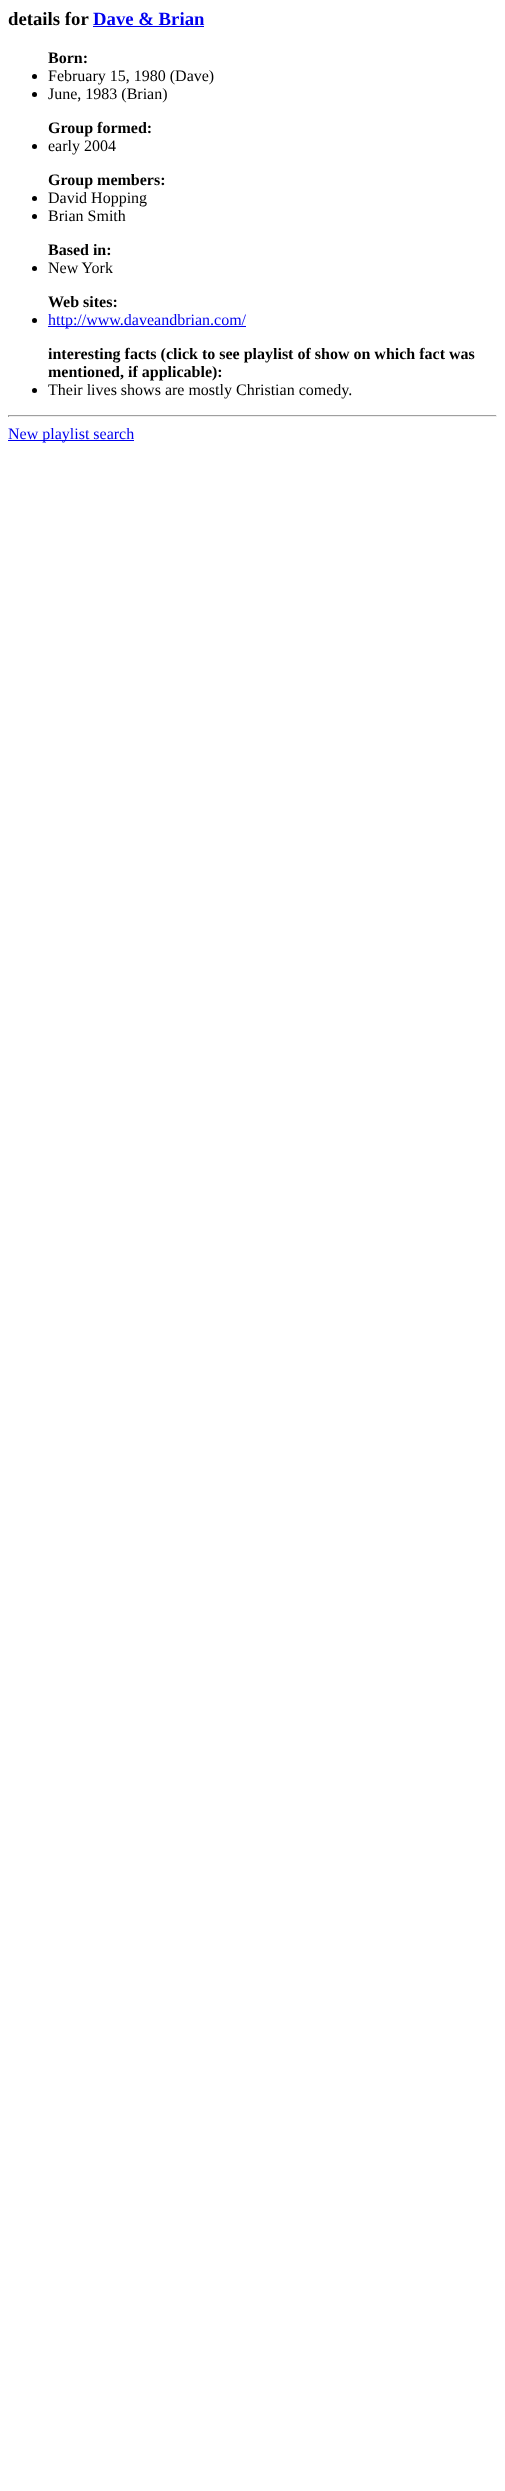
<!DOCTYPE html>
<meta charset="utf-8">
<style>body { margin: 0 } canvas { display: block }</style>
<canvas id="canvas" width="505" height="2491"></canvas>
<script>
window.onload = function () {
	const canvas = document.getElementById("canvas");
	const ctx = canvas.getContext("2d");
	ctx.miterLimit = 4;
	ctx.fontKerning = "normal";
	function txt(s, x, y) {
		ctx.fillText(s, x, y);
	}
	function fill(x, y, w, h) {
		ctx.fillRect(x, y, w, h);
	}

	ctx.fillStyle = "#FFFFFF";
	fill(0, 0, 505, 2491);
	ctx.fillStyle = "#0000EE";
	fill(93, 26, 111, 1);
	ctx.fillStyle = "#000000";
	ctx.beginPath();
	ctx.arc(34.5, 76.5, 2.5, 0, Math.PI * 2);
	ctx.fill();
	ctx.beginPath();
	ctx.arc(34.5, 94.5, 2.5, 0, Math.PI * 2);
	ctx.fill();
	ctx.beginPath();
	ctx.arc(34.5, 146.5, 2.5, 0, Math.PI * 2);
	ctx.fill();
	ctx.beginPath();
	ctx.arc(34.5, 198.5, 2.5, 0, Math.PI * 2);
	ctx.fill();
	ctx.beginPath();
	ctx.arc(34.5, 216.5, 2.5, 0, Math.PI * 2);
	ctx.fill();
	ctx.beginPath();
	ctx.arc(34.5, 268.5, 2.5, 0, Math.PI * 2);
	ctx.fill();
	ctx.beginPath();
	ctx.arc(34.5, 320.5, 2.5, 0, Math.PI * 2);
	ctx.fill();
	ctx.fillStyle = "#0000EE";
	fill(48, 326, 198, 1);
	ctx.fillStyle = "#000000";
	ctx.beginPath();
	ctx.arc(34.5, 390.5, 2.5, 0, Math.PI * 2);
	ctx.fill();
	ctx.fillStyle = "#9F9F9F";
	fill(8, 415, 489, 1);
	ctx.fillStyle = "#EEEEEE";
	fill(496, 415, 1, 2);
	fill(8, 416, 489, 1);
	ctx.fillStyle = "#9F9F9F";
	fill(8, 415, 1, 2);
	ctx.fillStyle = "#0000EE";
	fill(8, 440, 126, 1);
	ctx.font = "bold 18.75px Liberation Serif";
	ctx.fillStyle = "#000000";
	txt("details for", 8, 25);
	ctx.fillStyle = "#0000EE";
	txt("Dave & Brian", 93, 25);
	ctx.font = "bold 16px Liberation Serif";
	ctx.fillStyle = "#000000";
	txt("Born:", 48, 63);
	ctx.font = "16px Liberation Serif";
	txt("February 15, 1980 (Dave)", 48, 81);
	txt("June, 1983 (Brian)", 48, 99);
	ctx.font = "bold 16px Liberation Serif";
	txt("Group formed:", 48, 133);
	ctx.font = "16px Liberation Serif";
	txt("early 2004", 48, 151);
	ctx.font = "bold 16px Liberation Serif";
	txt("Group members:", 48, 185);
	ctx.font = "16px Liberation Serif";
	txt("David Hopping", 48, 203);
	txt("Brian Smith", 48, 221);
	ctx.font = "bold 16px Liberation Serif";
	txt("Based in:", 48, 255);
	ctx.font = "16px Liberation Serif";
	txt("New York", 48, 273);
	ctx.font = "bold 16px Liberation Serif";
	txt("Web sites:", 48, 307);
	ctx.font = "16px Liberation Serif";
	ctx.fillStyle = "#0000EE";
	txt("http://www.daveandbrian.com/", 48, 325);
	ctx.font = "bold 16px Liberation Serif";
	ctx.fillStyle = "#000000";
	txt("interesting facts (click to see playlist of show on which fact was", 48, 359);
	txt("mentioned, if applicable):", 48, 377);
	ctx.font = "16px Liberation Serif";
	txt("Their lives shows are mostly Christian comedy.", 48, 395);
	ctx.fillStyle = "#0000EE";
	txt("New playlist search", 8, 439);
};
</script>
